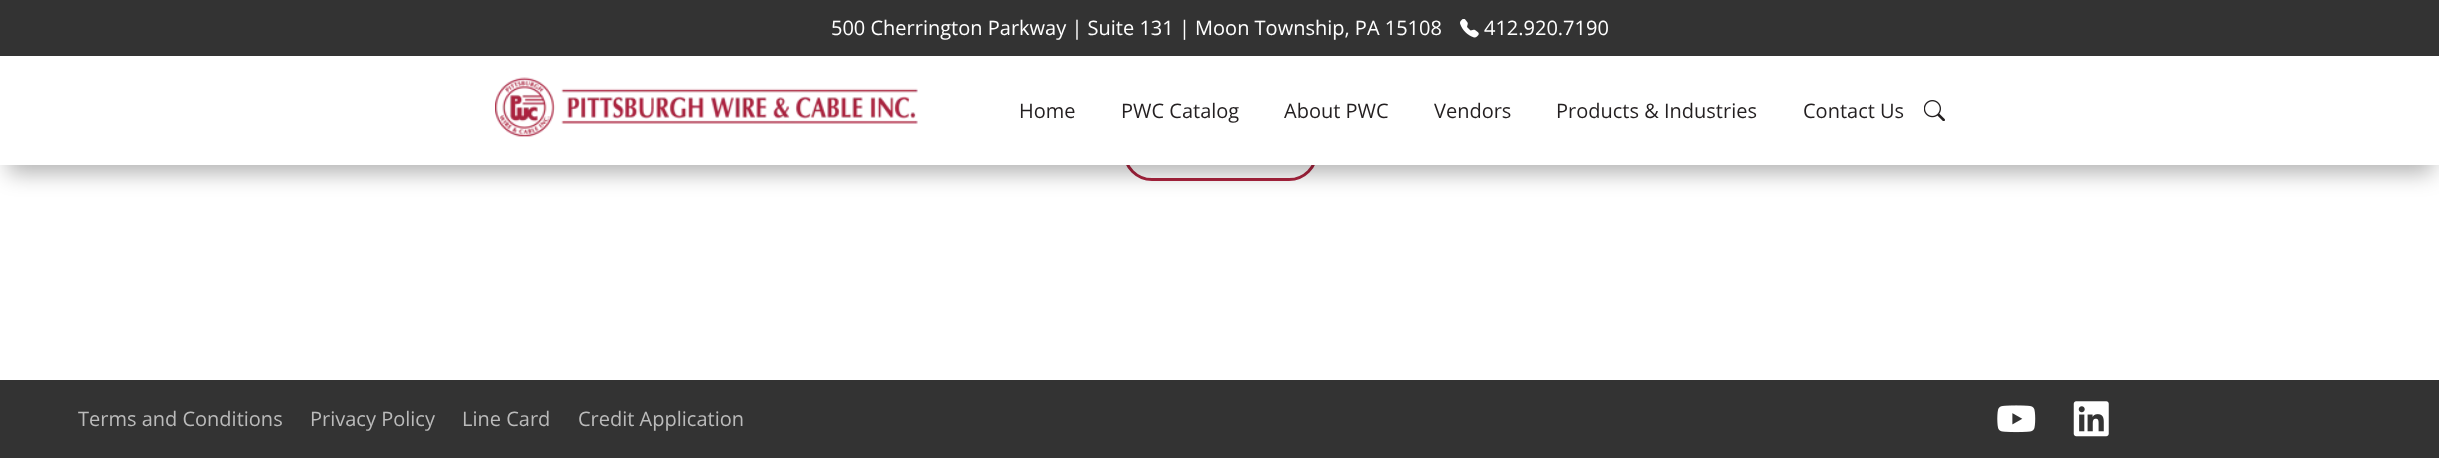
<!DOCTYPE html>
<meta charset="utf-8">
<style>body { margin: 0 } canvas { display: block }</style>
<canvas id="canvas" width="2439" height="458"></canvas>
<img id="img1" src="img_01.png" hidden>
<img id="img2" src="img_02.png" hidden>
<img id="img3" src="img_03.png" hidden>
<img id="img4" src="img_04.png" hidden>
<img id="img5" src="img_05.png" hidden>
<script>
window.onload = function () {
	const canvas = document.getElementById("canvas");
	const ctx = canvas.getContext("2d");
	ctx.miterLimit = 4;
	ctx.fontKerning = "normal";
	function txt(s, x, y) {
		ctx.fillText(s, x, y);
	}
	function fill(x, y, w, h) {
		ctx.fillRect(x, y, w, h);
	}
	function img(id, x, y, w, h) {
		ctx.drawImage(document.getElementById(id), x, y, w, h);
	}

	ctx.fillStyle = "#FFFFFF";
	fill(0, 0, 2439, 458);
	ctx.beginPath();
	ctx.roundRect(1124.5, 124.5, 192, 55, 27.5);
	ctx.strokeStyle = "#AA233E";
	ctx.lineWidth = 3;
	ctx.stroke();
	ctx.fillStyle = "rgba(0, 0, 0, 0.3)";
	ctx.filter = "blur(11px)";
	ctx.beginPath();
	ctx.rect(8, 23, 2425, 150);
	ctx.fill();
	ctx.filter = "none";
	ctx.fillStyle = "#333333";
	fill(0, 0, 2439, 56);
	img("img1", 1460, 19, 19, 19);
	ctx.fillStyle = "#FFFFFF";
	fill(0, 56, 2439, 109);
	img("img2", 495, 77, 423, 60);
	img("img3", 1924, 100, 21, 21);
	ctx.fillStyle = "#333333";
	fill(0, 380, 2439, 78);
	img("img4", 1997, 405, 39, 28);
	img("img5", 2073, 401, 36, 36);
	ctx.font = "20px Open Sans";
	ctx.fillStyle = "#FFFFFF";
	txt("500 Cherrington Parkway | Suite 131 | Moon Township, PA 15108", 831, 35);
	txt("412.920.7190", 1484, 35);
	ctx.fillStyle = "#231F20";
	txt("Home", 1019, 118);
	txt("PWC Catalog", 1121, 118);
	txt("About PWC", 1284, 118);
	txt("Vendors", 1434, 118);
	txt("Products & Industries", 1556, 118);
	txt("Contact Us", 1803, 118);
	ctx.fillStyle = "#BBBBBB";
	txt("Terms and Conditions", 78, 426);
	txt("Privacy Policy", 310, 426);
	txt("Line Card", 462, 426);
	txt("Credit Application", 578, 426);
};
</script>
